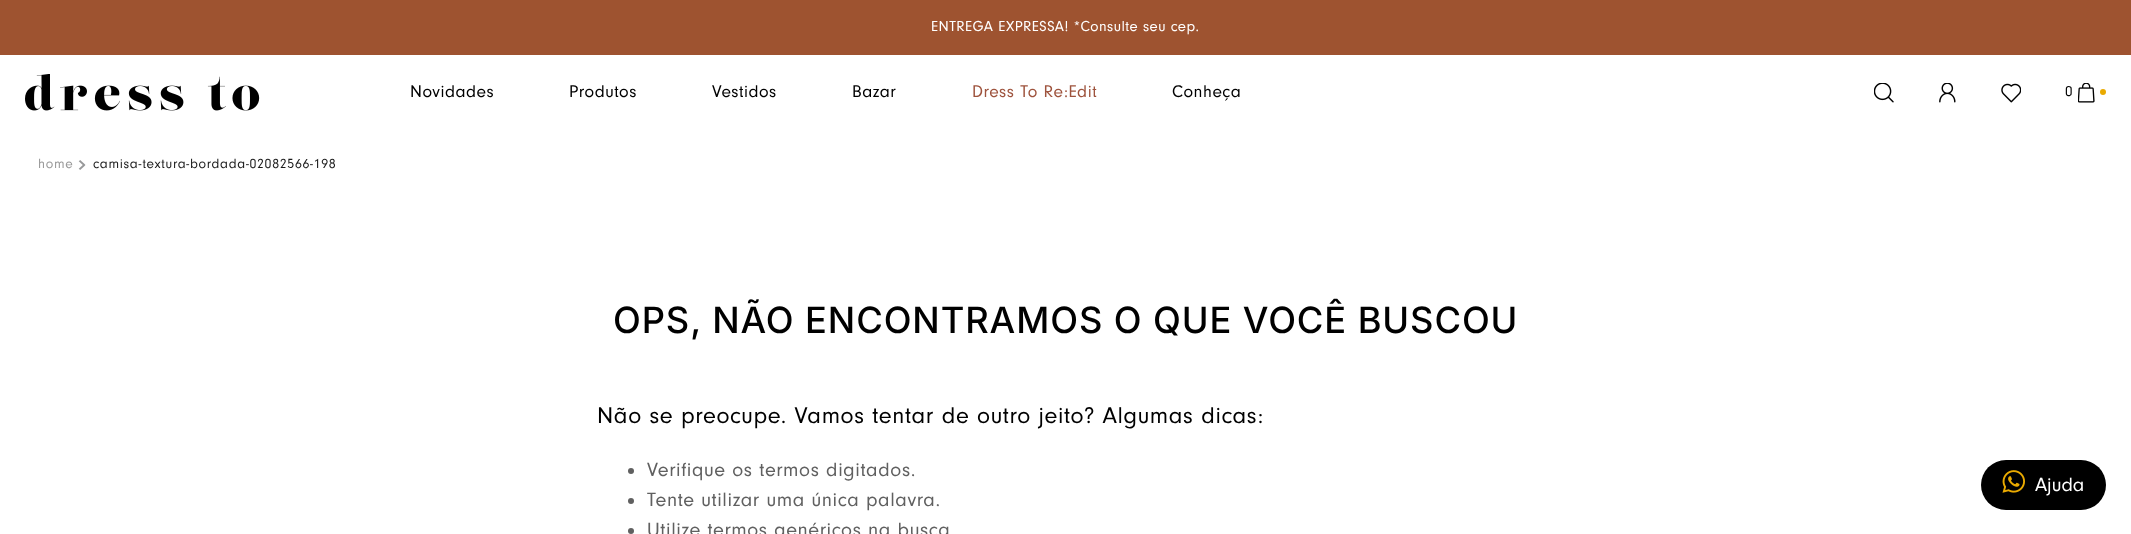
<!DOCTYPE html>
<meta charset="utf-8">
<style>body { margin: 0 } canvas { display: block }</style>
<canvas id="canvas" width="2131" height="534"></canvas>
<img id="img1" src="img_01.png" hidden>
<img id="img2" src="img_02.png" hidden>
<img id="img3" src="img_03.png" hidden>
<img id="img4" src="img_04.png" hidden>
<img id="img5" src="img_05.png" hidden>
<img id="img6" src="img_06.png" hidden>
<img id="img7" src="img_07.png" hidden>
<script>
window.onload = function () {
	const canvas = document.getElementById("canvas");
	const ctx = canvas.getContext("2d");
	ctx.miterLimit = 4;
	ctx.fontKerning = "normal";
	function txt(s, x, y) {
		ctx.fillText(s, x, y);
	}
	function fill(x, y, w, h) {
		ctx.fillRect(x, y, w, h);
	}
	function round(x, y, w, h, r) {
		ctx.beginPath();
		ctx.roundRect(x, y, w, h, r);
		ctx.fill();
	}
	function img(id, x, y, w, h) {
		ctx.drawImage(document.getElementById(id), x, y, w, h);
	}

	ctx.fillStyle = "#FFFFFF";
	fill(0, 0, 2131, 534);
	ctx.fillStyle = "#9E5330";
	fill(0, 0, 2131, 55);
	img("img1", 25, 74, 235, 37);
	img("img2", 1874, 83, 20, 20);
	img("img3", 1939, 83, 17, 20);
	img("img4", 2001, 83, 20, 20);
	img("img5", 2078, 83, 17, 20);
	ctx.fillStyle = "#EAAA00";
	ctx.beginPath();
	ctx.arc(2103, 92, 3, 0, Math.PI * 2);
	ctx.fill();
	img("img6", 78, 160, 8, 10);
	ctx.fillStyle = "#606060";
	ctx.beginPath();
	ctx.arc(631, 471, 3, 0, Math.PI * 2);
	ctx.fill();
	ctx.beginPath();
	ctx.arc(631, 501, 3, 0, Math.PI * 2);
	ctx.fill();
	ctx.beginPath();
	ctx.arc(631, 531, 3, 0, Math.PI * 2);
	ctx.fill();
	ctx.fillStyle = "#000000";
	round(1981, 460, 125, 50, 25);
	img("img7", 2002, 470, 23, 23);
	ctx.letterSpacing = "0.45px";
	ctx.font = "15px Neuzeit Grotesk";
	ctx.fillStyle = "#FFFFFF";
	txt("ENTREGA EXPRESSA! *Consulte seu cep.", 931, 31);
	ctx.letterSpacing = "0.5px";
	ctx.font = "17.5px Neuzeit Grotesk";
	ctx.fillStyle = "#000000";
	txt("Novidades", 410, 97);
	txt("Produtos", 569, 97);
	txt("Vestidos", 712, 97);
	txt("Bazar", 852, 97);
	ctx.fillStyle = "#9E533D";
	txt("Dress To Re:Edit", 972, 97);
	ctx.fillStyle = "#000000";
	txt("Conheça", 1172, 97);
	ctx.letterSpacing = "0px";
	ctx.font = "15px Neuzeit Grotesk";
	txt("0", 2065, 96);
	ctx.letterSpacing = "0.7px";
	ctx.font = "13.75px Neuzeit Grotesk";
	ctx.fillStyle = "#999999";
	txt("home", 38, 168);
	ctx.fillStyle = "#1A1A1A";
	txt("camisa-textura-bordada-02082566-198", 93, 168);
	ctx.letterSpacing = "0.9px";
	ctx.font = "500 36.25px Inter";
	ctx.fillStyle = "#000000";
	txt("OPS, NÃO ENCONTRAMOS O QUE VOCÊ BUSCOU", 613, 333);
	ctx.letterSpacing = "0.6px";
	ctx.font = "23.75px Neuzeit Grotesk";
	txt("Não se preocupe. Vamos tentar de outro jeito? Algumas dicas:", 597, 423);
	ctx.font = "20px Neuzeit Grotesk";
	ctx.fillStyle = "#606060";
	txt("Verifique os termos digitados.", 647, 476);
	txt("Tente utilizar uma única palavra.", 647, 506);
	txt("Utilize termos genéricos na busca", 647, 536);
	ctx.letterSpacing = "0px";
	ctx.fillStyle = "#FFFFFF";
	txt("Ajuda", 2035, 491);
};
</script>
